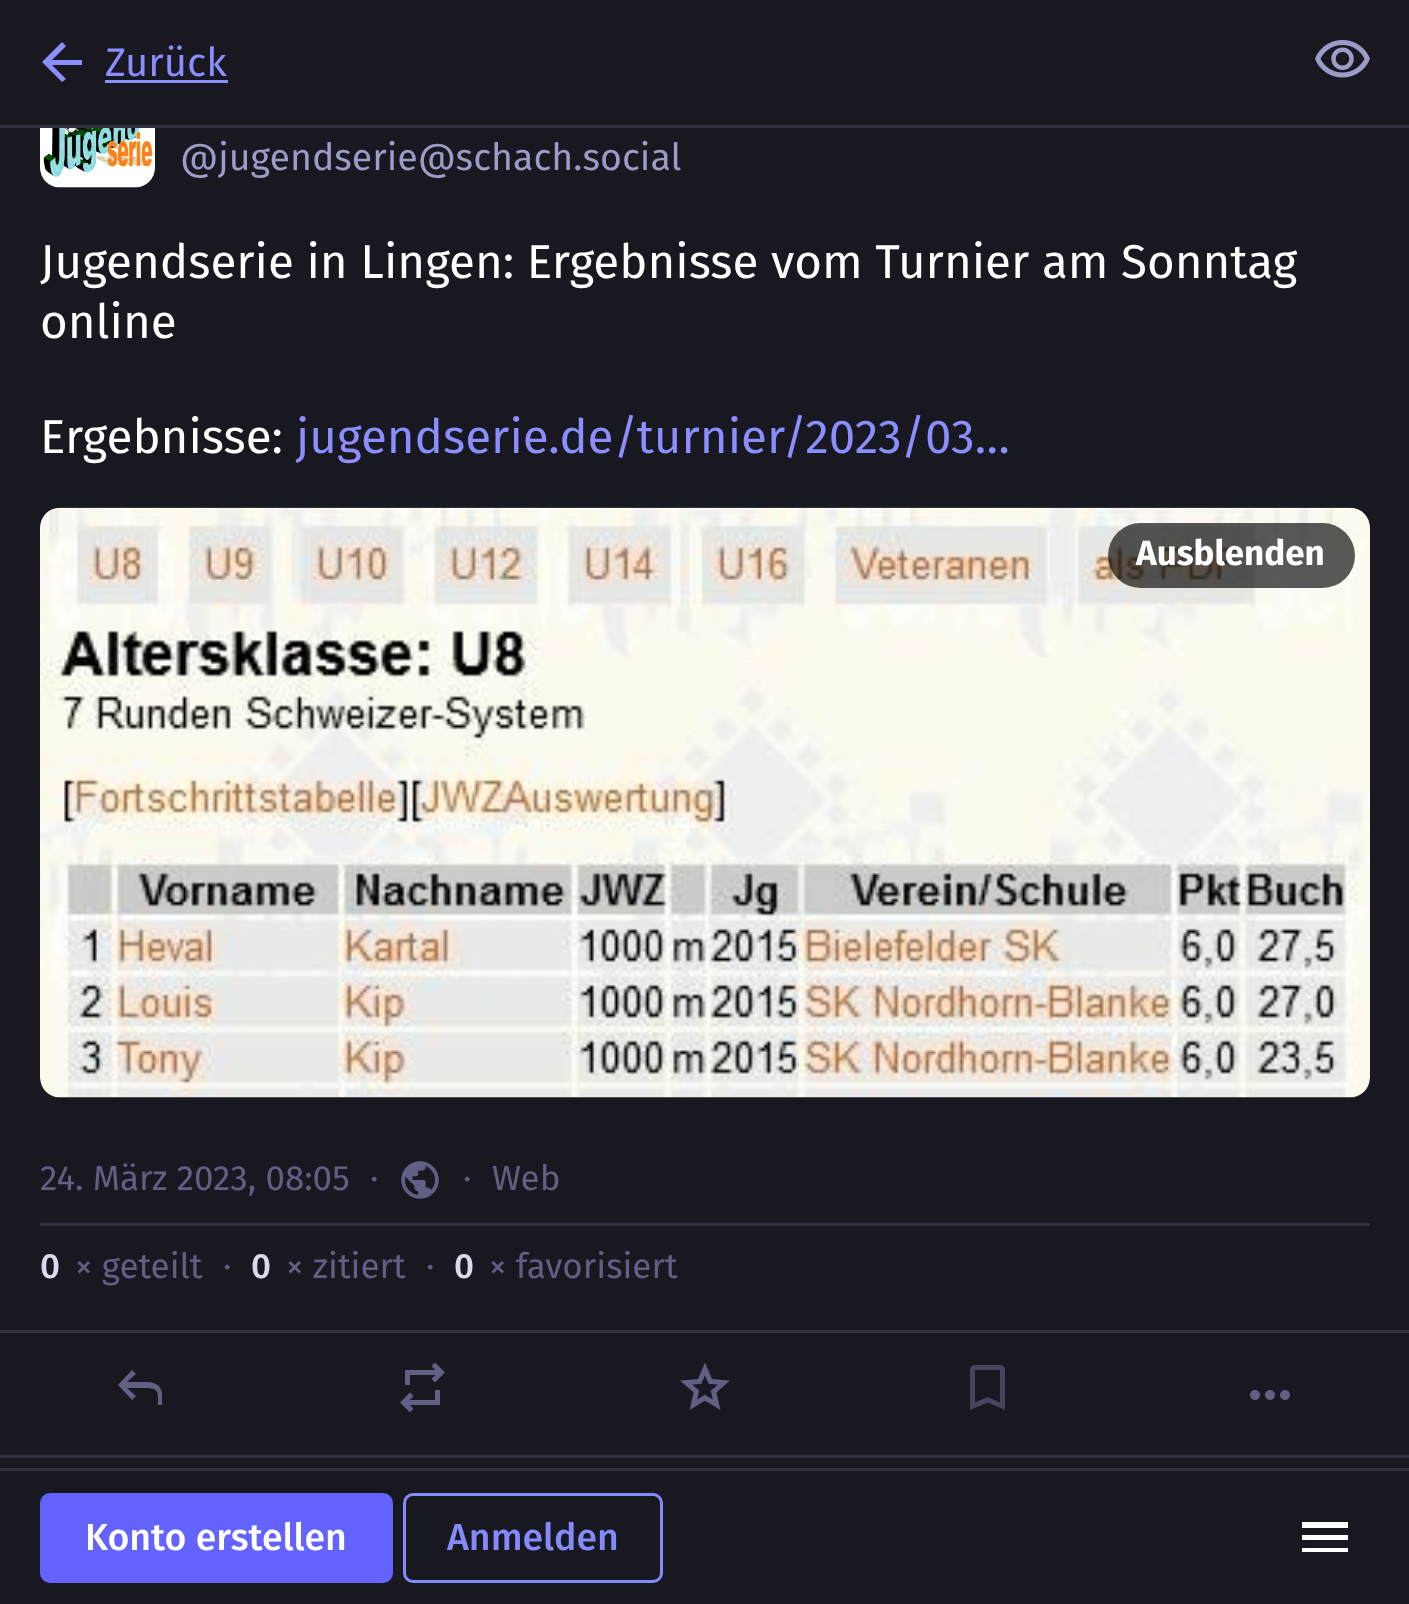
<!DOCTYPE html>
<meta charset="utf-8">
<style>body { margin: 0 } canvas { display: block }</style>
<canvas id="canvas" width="1409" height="1604"></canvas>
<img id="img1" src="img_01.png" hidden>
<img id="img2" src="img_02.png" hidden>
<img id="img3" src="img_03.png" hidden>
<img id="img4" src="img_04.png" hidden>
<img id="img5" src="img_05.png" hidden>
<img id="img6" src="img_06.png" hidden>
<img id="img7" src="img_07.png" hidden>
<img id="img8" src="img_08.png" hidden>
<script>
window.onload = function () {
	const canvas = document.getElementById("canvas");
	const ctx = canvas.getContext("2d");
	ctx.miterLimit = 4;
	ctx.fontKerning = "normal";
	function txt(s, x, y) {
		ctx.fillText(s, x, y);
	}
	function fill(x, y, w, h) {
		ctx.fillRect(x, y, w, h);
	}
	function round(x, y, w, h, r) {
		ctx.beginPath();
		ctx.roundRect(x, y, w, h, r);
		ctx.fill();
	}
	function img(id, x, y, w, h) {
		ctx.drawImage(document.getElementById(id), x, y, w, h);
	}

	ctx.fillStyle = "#181821";
	fill(0, 0, 1409, 1604);
	ctx.fillStyle = "#20202C";
	round(40, 73, 115, 115, 20);
	ctx.fillStyle = "#181821";
	fill(40, 73, 115, 52);
	ctx.fillStyle = "#313144";
	fill(0, 125, 1409, 3);
	ctx.fillStyle = "#8C8DFF";
	ctx.beginPath();
	ctx.moveTo(52, 65);
	ctx.lineTo(66, 79);
	ctx.lineTo(62, 82);
	ctx.lineTo(42, 62);
	ctx.lineTo(62, 42);
	ctx.lineTo(66, 46);
	ctx.lineTo(52, 60);
	ctx.lineTo(82, 60);
	ctx.lineTo(82, 65);
	ctx.closePath();
	ctx.fill();
	fill(105, 80, 123, 3);
	img("img1", 1315, 40, 55, 38);
	img("img2", 40, 128, 115, 60);
	img("img3", 40, 507, 1330, 591);
	ctx.beginPath();
	ctx.roundRect(41.5, 509.5, 1327, 587, 18.5);
	ctx.strokeStyle = "rgba(252, 248, 255, 0.15)";
	ctx.lineWidth = 3;
	ctx.stroke();
	ctx.fillStyle = "rgba(0, 0, 0, 0.65)";
	round(1108, 523, 247, 65, 32.5);
	ctx.fillStyle = "#313144";
	fill(40, 1223, 1330, 3);
	img("img4", 401, 1161, 38, 38);
	fill(0, 1330, 1409, 3);
	fill(0, 1455, 1409, 3);
	ctx.fillStyle = "#606085";
	ctx.beginPath();
	ctx.moveTo(158, 1405);
	ctx.bezierCurveTo(158, 1394, 160, 1388, 146, 1388);
	ctx.lineTo(127, 1388);
	ctx.lineTo(136, 1396);
	ctx.lineTo(132, 1400);
	ctx.lineTo(118, 1385);
	ctx.lineTo(132, 1370);
	ctx.lineTo(136, 1374);
	ctx.lineTo(127, 1382);
	ctx.lineTo(142, 1382);
	ctx.bezierCurveTo(151, 1382, 160, 1382, 162, 1393);
	ctx.lineTo(162, 1405);
	ctx.closePath();
	ctx.fill();
	img("img5", 400, 1362, 45, 51);
	img("img6", 680, 1362, 50, 48);
	img("img7", 970, 1365, 35, 45);
	img("img8", 1250, 1390, 40, 10);
	ctx.fillStyle = "#313144";
	fill(0, 1468, 1409, 3);
	ctx.fillStyle = "#6364FF";
	round(40, 1493, 353, 90, 10);
	ctx.beginPath();
	ctx.roundRect(404.5, 1494.5, 257, 87, 8.5);
	ctx.strokeStyle = "#858AFA";
	ctx.stroke();
	ctx.fillStyle = "#FFFFFF";
	ctx.beginPath();
	ctx.moveTo(1302, 1552);
	ctx.lineTo(1302, 1548);
	ctx.lineTo(1348, 1548);
	ctx.lineTo(1348, 1552);
	ctx.closePath();
	ctx.moveTo(1302, 1540);
	ctx.lineTo(1302, 1535);
	ctx.lineTo(1348, 1535);
	ctx.lineTo(1348, 1540);
	ctx.closePath();
	ctx.moveTo(1302, 1528);
	ctx.lineTo(1302, 1522);
	ctx.lineTo(1348, 1522);
	ctx.lineTo(1348, 1528);
	ctx.closePath();
	ctx.fill();
	ctx.font = "40px Fira Sans";
	ctx.fillStyle = "#8C8DFF";
	txt("Zurück", 105, 76);
	ctx.font = "37.5px Fira Sans";
	ctx.fillStyle = "#9C9CC9";
	txt("@jugendserie@schach.social", 180, 170);
	ctx.font = "47.5px Fira Sans";
	ctx.fillStyle = "#FFFFFF";
	txt("Jugendserie in Lingen: Ergebnisse vom Turnier am Sonntag", 40, 278);
	txt("online", 40, 338);
	txt("Ergebnisse:", 40, 453);
	ctx.fillStyle = "#8C8DFF";
	txt("jugendserie.de/turnier/2023/03…", 296, 453);
	ctx.font = "bold 35px Fira Sans";
	ctx.fillStyle = "#FFFFFF";
	txt("Ausblenden", 1136, 565);
	ctx.font = "35px Fira Sans";
	ctx.fillStyle = "#606085";
	txt("24. März 2023, 08:05", 40, 1190);
	txt("·", 370, 1190);
	txt("·", 463, 1190);
	txt("Web", 492, 1190);
	ctx.font = "500 35px Fira Sans";
	ctx.fillStyle = "#DDD9E8";
	txt("0", 40, 1278);
	ctx.font = "35px Fira Sans";
	ctx.fillStyle = "#606085";
	txt("× geteilt", 75, 1278);
	txt("·", 223, 1278);
	ctx.font = "500 35px Fira Sans";
	ctx.fillStyle = "#DDD9E8";
	txt("0", 251, 1278);
	ctx.font = "35px Fira Sans";
	ctx.fillStyle = "#606085";
	txt("× zitiert", 286, 1278);
	txt("·", 426, 1278);
	ctx.font = "500 35px Fira Sans";
	ctx.fillStyle = "#DDD9E8";
	txt("0", 454, 1278);
	ctx.font = "35px Fira Sans";
	ctx.fillStyle = "#606085";
	txt("× favorisiert", 489, 1278);
	ctx.font = "500 37.5px Fira Sans";
	ctx.fillStyle = "#FFFFFF";
	txt("Konto erstellen", 85, 1550);
	ctx.fillStyle = "#858AFA";
	txt("Anmelden", 447, 1550);
};
</script>
